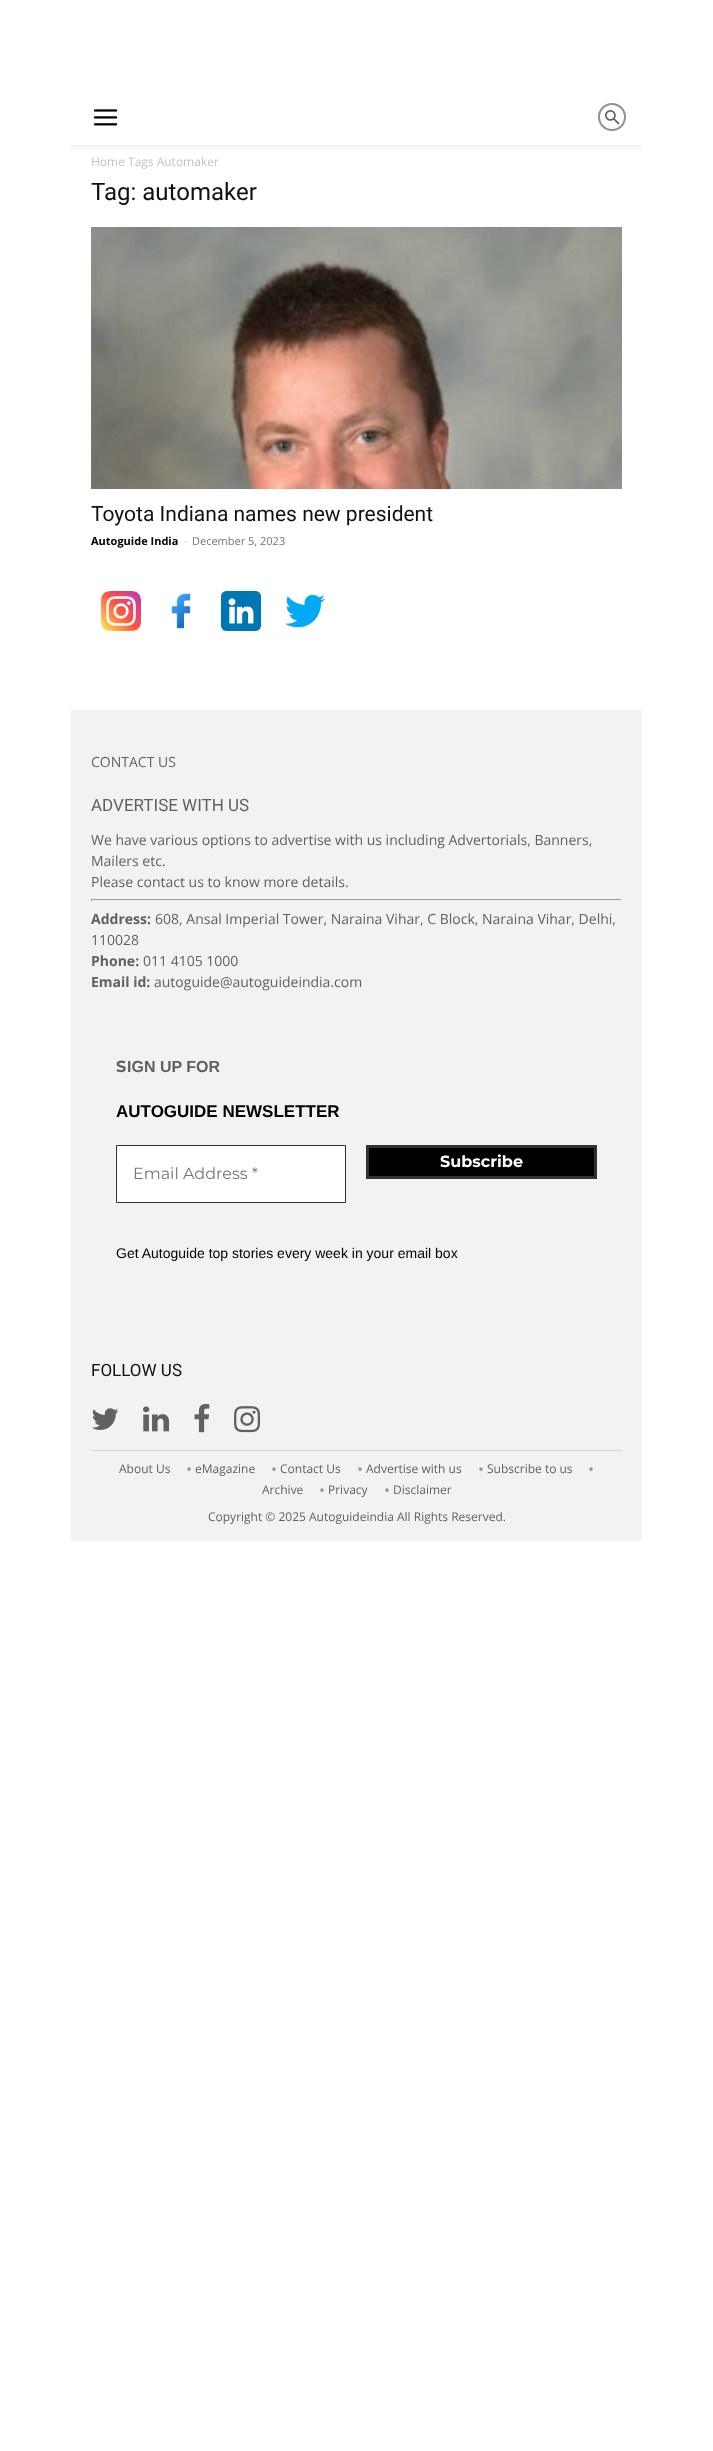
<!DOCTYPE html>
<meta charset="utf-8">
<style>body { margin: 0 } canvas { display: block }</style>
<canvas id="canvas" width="713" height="2451"></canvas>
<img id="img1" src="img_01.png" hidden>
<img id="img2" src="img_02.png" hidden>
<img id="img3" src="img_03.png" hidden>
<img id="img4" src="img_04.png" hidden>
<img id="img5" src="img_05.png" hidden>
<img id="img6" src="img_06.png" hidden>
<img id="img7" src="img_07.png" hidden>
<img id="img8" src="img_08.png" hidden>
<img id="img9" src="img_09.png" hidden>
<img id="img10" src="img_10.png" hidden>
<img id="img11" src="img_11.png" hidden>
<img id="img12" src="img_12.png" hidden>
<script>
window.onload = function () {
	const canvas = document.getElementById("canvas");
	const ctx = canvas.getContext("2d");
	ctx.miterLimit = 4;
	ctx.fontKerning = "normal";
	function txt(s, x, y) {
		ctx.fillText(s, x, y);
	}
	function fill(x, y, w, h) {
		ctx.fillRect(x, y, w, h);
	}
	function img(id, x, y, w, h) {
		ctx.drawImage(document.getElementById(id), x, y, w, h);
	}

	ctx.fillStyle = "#FFFFFF";
	fill(0, 0, 713, 2451);
	img("img1", 94, 109, 24, 17);
	ctx.beginPath();
	ctx.arc(612, 117, 13, 0, Math.PI * 2);
	ctx.strokeStyle = "#929191";
	ctx.lineWidth = 2;
	ctx.stroke();
	img("img2", 605, 110, 15, 15);
	img("img3", 71, 145, 571, 5);
	img("img4", 91, 227, 531, 262);
	img("img5", 101, 591, 40, 40);
	img("img6", 171, 593, 20, 36);
	img("img7", 221, 591, 40, 40);
	img("img8", 285, 594, 40, 34);
	ctx.fillStyle = "#F2F2F2";
	fill(71, 710, 571, 831);
	ctx.fillStyle = "#9F9F9F";
	fill(91, 899, 531, 1);
	ctx.fillStyle = "#EEEEEE";
	fill(621, 899, 1, 2);
	fill(91, 900, 531, 1);
	ctx.fillStyle = "#9F9F9F";
	fill(91, 899, 1, 2);
	ctx.fillStyle = "#000000";
	ctx.beginPath();
	ctx.rect(367.5, 1146.5, 228, 31);
	ctx.fill();
	ctx.strokeStyle = "#313131";
	ctx.lineWidth = 3;
	ctx.stroke();
	ctx.fillStyle = "#FFFFFF";
	ctx.beginPath();
	ctx.rect(116.5, 1145.5, 229, 57);
	ctx.fill();
	ctx.lineWidth = 1;
	ctx.stroke();
	img("img9", 92, 1408, 27, 22);
	img("img10", 143, 1406, 27, 26);
	img("img11", 194, 1404, 16, 29);
	img("img12", 234, 1406, 27, 27);
	ctx.fillStyle = "#D4D4D4";
	fill(91, 1450, 531, 1);
	ctx.font = "12px Open Sans";
	ctx.fillStyle = "#C3C3C3";
	txt("Home Tags Automaker", 91, 166);
	ctx.font = "24px Roboto";
	ctx.fillStyle = "#111111";
	txt("Tag: automaker", 91, 200);
	ctx.font = "21px Roboto";
	txt("Toyota Indiana names new president", 91, 521);
	ctx.font = "bold 11px Open Sans";
	ctx.fillStyle = "#000000";
	txt("Autoguide India", 91, 545);
	ctx.font = "11px Open Sans";
	ctx.fillStyle = "#CCCCCC";
	txt("-", 184, 545);
	ctx.fillStyle = "#767676";
	txt("December 5, 2023", 192, 545);
	ctx.font = "14px Open Sans";
	ctx.fillStyle = "#616161";
	txt("CONTACT US", 91, 767);
	ctx.font = "17px Roboto";
	txt("ADVERTISE WITH US", 91, 811);
	ctx.font = "14px Open Sans";
	txt("We have various options to advertise with us including Advertorials, Banners,", 91, 845);
	txt("Mailers etc.", 91, 866);
	txt("Please contact us to know more details.", 91, 887);
	ctx.font = "bold 14px Open Sans";
	txt("Address:", 91, 924);
	ctx.font = "14px Open Sans";
	txt("608, Ansal Imperial Tower, Naraina Vihar, C Block, Naraina Vihar, Delhi,", 155, 924);
	txt("110028", 91, 945);
	ctx.font = "bold 14px Open Sans";
	txt("Phone:", 91, 966);
	ctx.font = "14px Open Sans";
	txt("011 4105 1000", 143, 966);
	ctx.font = "bold 14px Open Sans";
	txt("Email id:", 91, 987);
	ctx.font = "14px Open Sans";
	txt("autoguide@autoguideindia.com", 154, 987);
	ctx.font = "bold 16px Montserrat";
	txt("S", 116, 1072);
	ctx.font = "bold 16px Liberation Sans";
	txt("IGN UP FOR", 127, 1072);
	ctx.font = "bold 17px Liberation Sans";
	ctx.fillStyle = "#000000";
	txt("AUTOGUIDE NEWSLETTER", 116, 1117);
	ctx.font = "bold 16px Montserrat";
	ctx.fillStyle = "#FFFFFF";
	txt("Subscribe", 440, 1167);
	ctx.font = "16px Montserrat";
	ctx.fillStyle = "#767676";
	txt("Email Address *", 133, 1179);
	ctx.font = "14px Liberation Sans";
	ctx.fillStyle = "#000000";
	txt("Get Autoguide top stories every week in your email box", 116, 1258);
	ctx.font = "17px Roboto";
	ctx.fillStyle = "#111111";
	txt("FOLLOW US", 91, 1376);
	ctx.font = "12px Open Sans";
	ctx.fillStyle = "#616161";
	txt("About Us", 119, 1473);
	ctx.font = "16px Open Sans";
	ctx.fillStyle = "#999999";
	txt("•", 186, 1475);
	ctx.font = "12px Open Sans";
	ctx.fillStyle = "#616161";
	txt("eMagazine", 195, 1473);
	ctx.font = "16px Open Sans";
	ctx.fillStyle = "#999999";
	txt("•", 271, 1475);
	ctx.font = "12px Open Sans";
	ctx.fillStyle = "#616161";
	txt("Contact Us", 280, 1473);
	ctx.font = "16px Open Sans";
	ctx.fillStyle = "#999999";
	txt("•", 357, 1475);
	ctx.font = "12px Open Sans";
	ctx.fillStyle = "#616161";
	txt("Advertise with us", 366, 1473);
	ctx.font = "16px Open Sans";
	ctx.fillStyle = "#999999";
	txt("•", 478, 1475);
	ctx.font = "12px Open Sans";
	ctx.fillStyle = "#616161";
	txt("Subscribe to us", 487, 1473);
	ctx.font = "16px Open Sans";
	ctx.fillStyle = "#999999";
	txt("•", 588, 1475);
	ctx.font = "12px Open Sans";
	ctx.fillStyle = "#616161";
	txt("Archive", 262, 1494);
	ctx.font = "16px Open Sans";
	ctx.fillStyle = "#999999";
	txt("•", 319, 1496);
	ctx.font = "12px Open Sans";
	ctx.fillStyle = "#616161";
	txt("Privacy", 328, 1494);
	ctx.font = "16px Open Sans";
	ctx.fillStyle = "#999999";
	txt("•", 384, 1496);
	ctx.font = "12px Open Sans";
	ctx.fillStyle = "#616161";
	txt("Disclaimer", 393, 1494);
	txt("Copyright © 2025 Autoguideindia All Rights Reserved.", 208, 1521);
};
</script>
